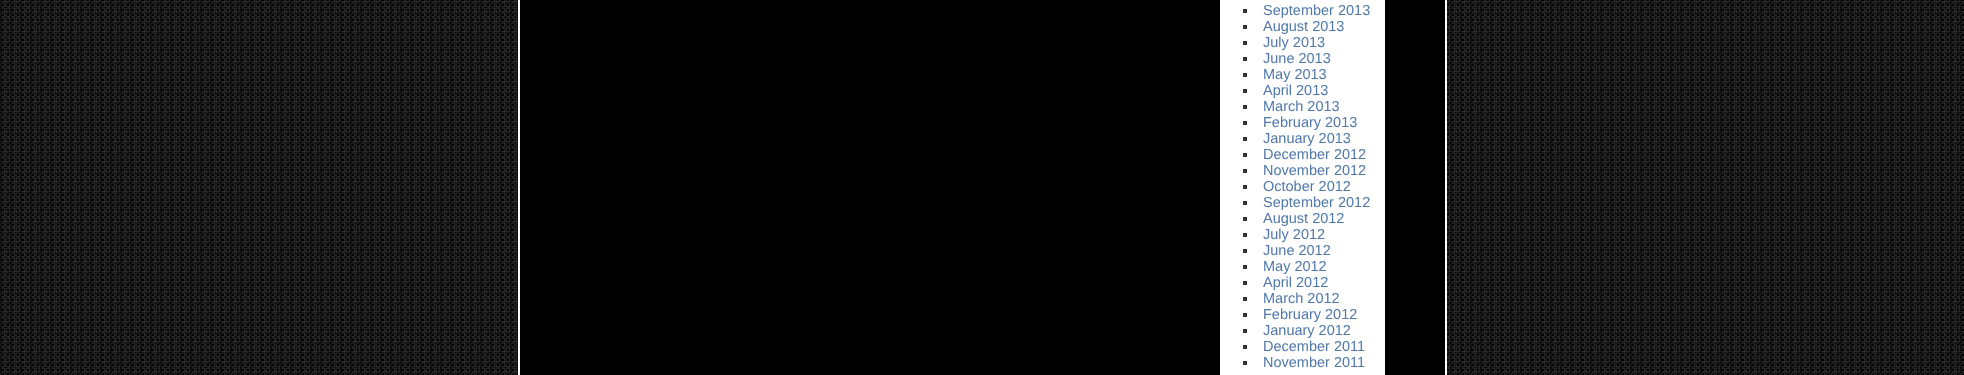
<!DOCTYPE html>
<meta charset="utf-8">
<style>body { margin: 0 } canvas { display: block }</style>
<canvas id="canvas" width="1964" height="375"></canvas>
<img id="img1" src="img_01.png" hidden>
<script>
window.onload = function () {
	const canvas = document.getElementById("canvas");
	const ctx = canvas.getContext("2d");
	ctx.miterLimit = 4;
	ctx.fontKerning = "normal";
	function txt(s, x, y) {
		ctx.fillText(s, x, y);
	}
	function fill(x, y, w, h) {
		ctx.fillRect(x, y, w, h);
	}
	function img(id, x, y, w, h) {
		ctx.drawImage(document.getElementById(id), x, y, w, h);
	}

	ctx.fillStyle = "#FFFFFF";
	fill(0, 0, 1964, 375);
	img("img1", 0, 0, 1964, 375);
	ctx.fillStyle = "#000000";
	ctx.beginPath();
	ctx.rect(519, -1, 927, 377);
	ctx.fill();
	ctx.strokeStyle = "#FFFFFF";
	ctx.lineWidth = 2;
	ctx.stroke();
	ctx.fillStyle = "#FFFFFF";
	fill(1220, 0, 165, 375);
	ctx.fillStyle = "#333333";
	fill(1243, 9, 4, 4);
	fill(1243, 25, 4, 4);
	fill(1243, 41, 4, 4);
	fill(1243, 57, 4, 4);
	fill(1243, 73, 4, 4);
	fill(1243, 89, 4, 4);
	fill(1243, 105, 4, 4);
	fill(1243, 121, 4, 4);
	fill(1243, 137, 4, 4);
	fill(1243, 153, 4, 4);
	fill(1243, 169, 4, 4);
	fill(1243, 185, 4, 4);
	fill(1243, 201, 4, 4);
	fill(1243, 217, 4, 4);
	fill(1243, 233, 4, 4);
	fill(1243, 249, 4, 4);
	fill(1243, 265, 4, 4);
	fill(1243, 281, 4, 4);
	fill(1243, 297, 4, 4);
	fill(1243, 313, 4, 4);
	fill(1243, 329, 4, 4);
	fill(1243, 345, 4, 4);
	fill(1243, 361, 4, 4);
	ctx.font = "14.5px Liberation Sans";
	ctx.fillStyle = "#5078A9";
	txt("September 2013", 1263, 15);
	txt("August 2013", 1263, 31);
	txt("July 2013", 1263, 47);
	txt("June 2013", 1263, 63);
	txt("May 2013", 1263, 79);
	txt("April 2013", 1263, 95);
	txt("March 2013", 1263, 111);
	txt("February 2013", 1263, 127);
	txt("January 2013", 1263, 143);
	txt("December 2012", 1263, 159);
	txt("November 2012", 1263, 175);
	txt("October 2012", 1263, 191);
	txt("September 2012", 1263, 207);
	txt("August 2012", 1263, 223);
	txt("July 2012", 1263, 239);
	txt("June 2012", 1263, 255);
	txt("May 2012", 1263, 271);
	txt("April 2012", 1263, 287);
	txt("March 2012", 1263, 303);
	txt("February 2012", 1263, 319);
	txt("January 2012", 1263, 335);
	txt("December 2011", 1263, 351);
	txt("November 2011", 1263, 367);
};
</script>
